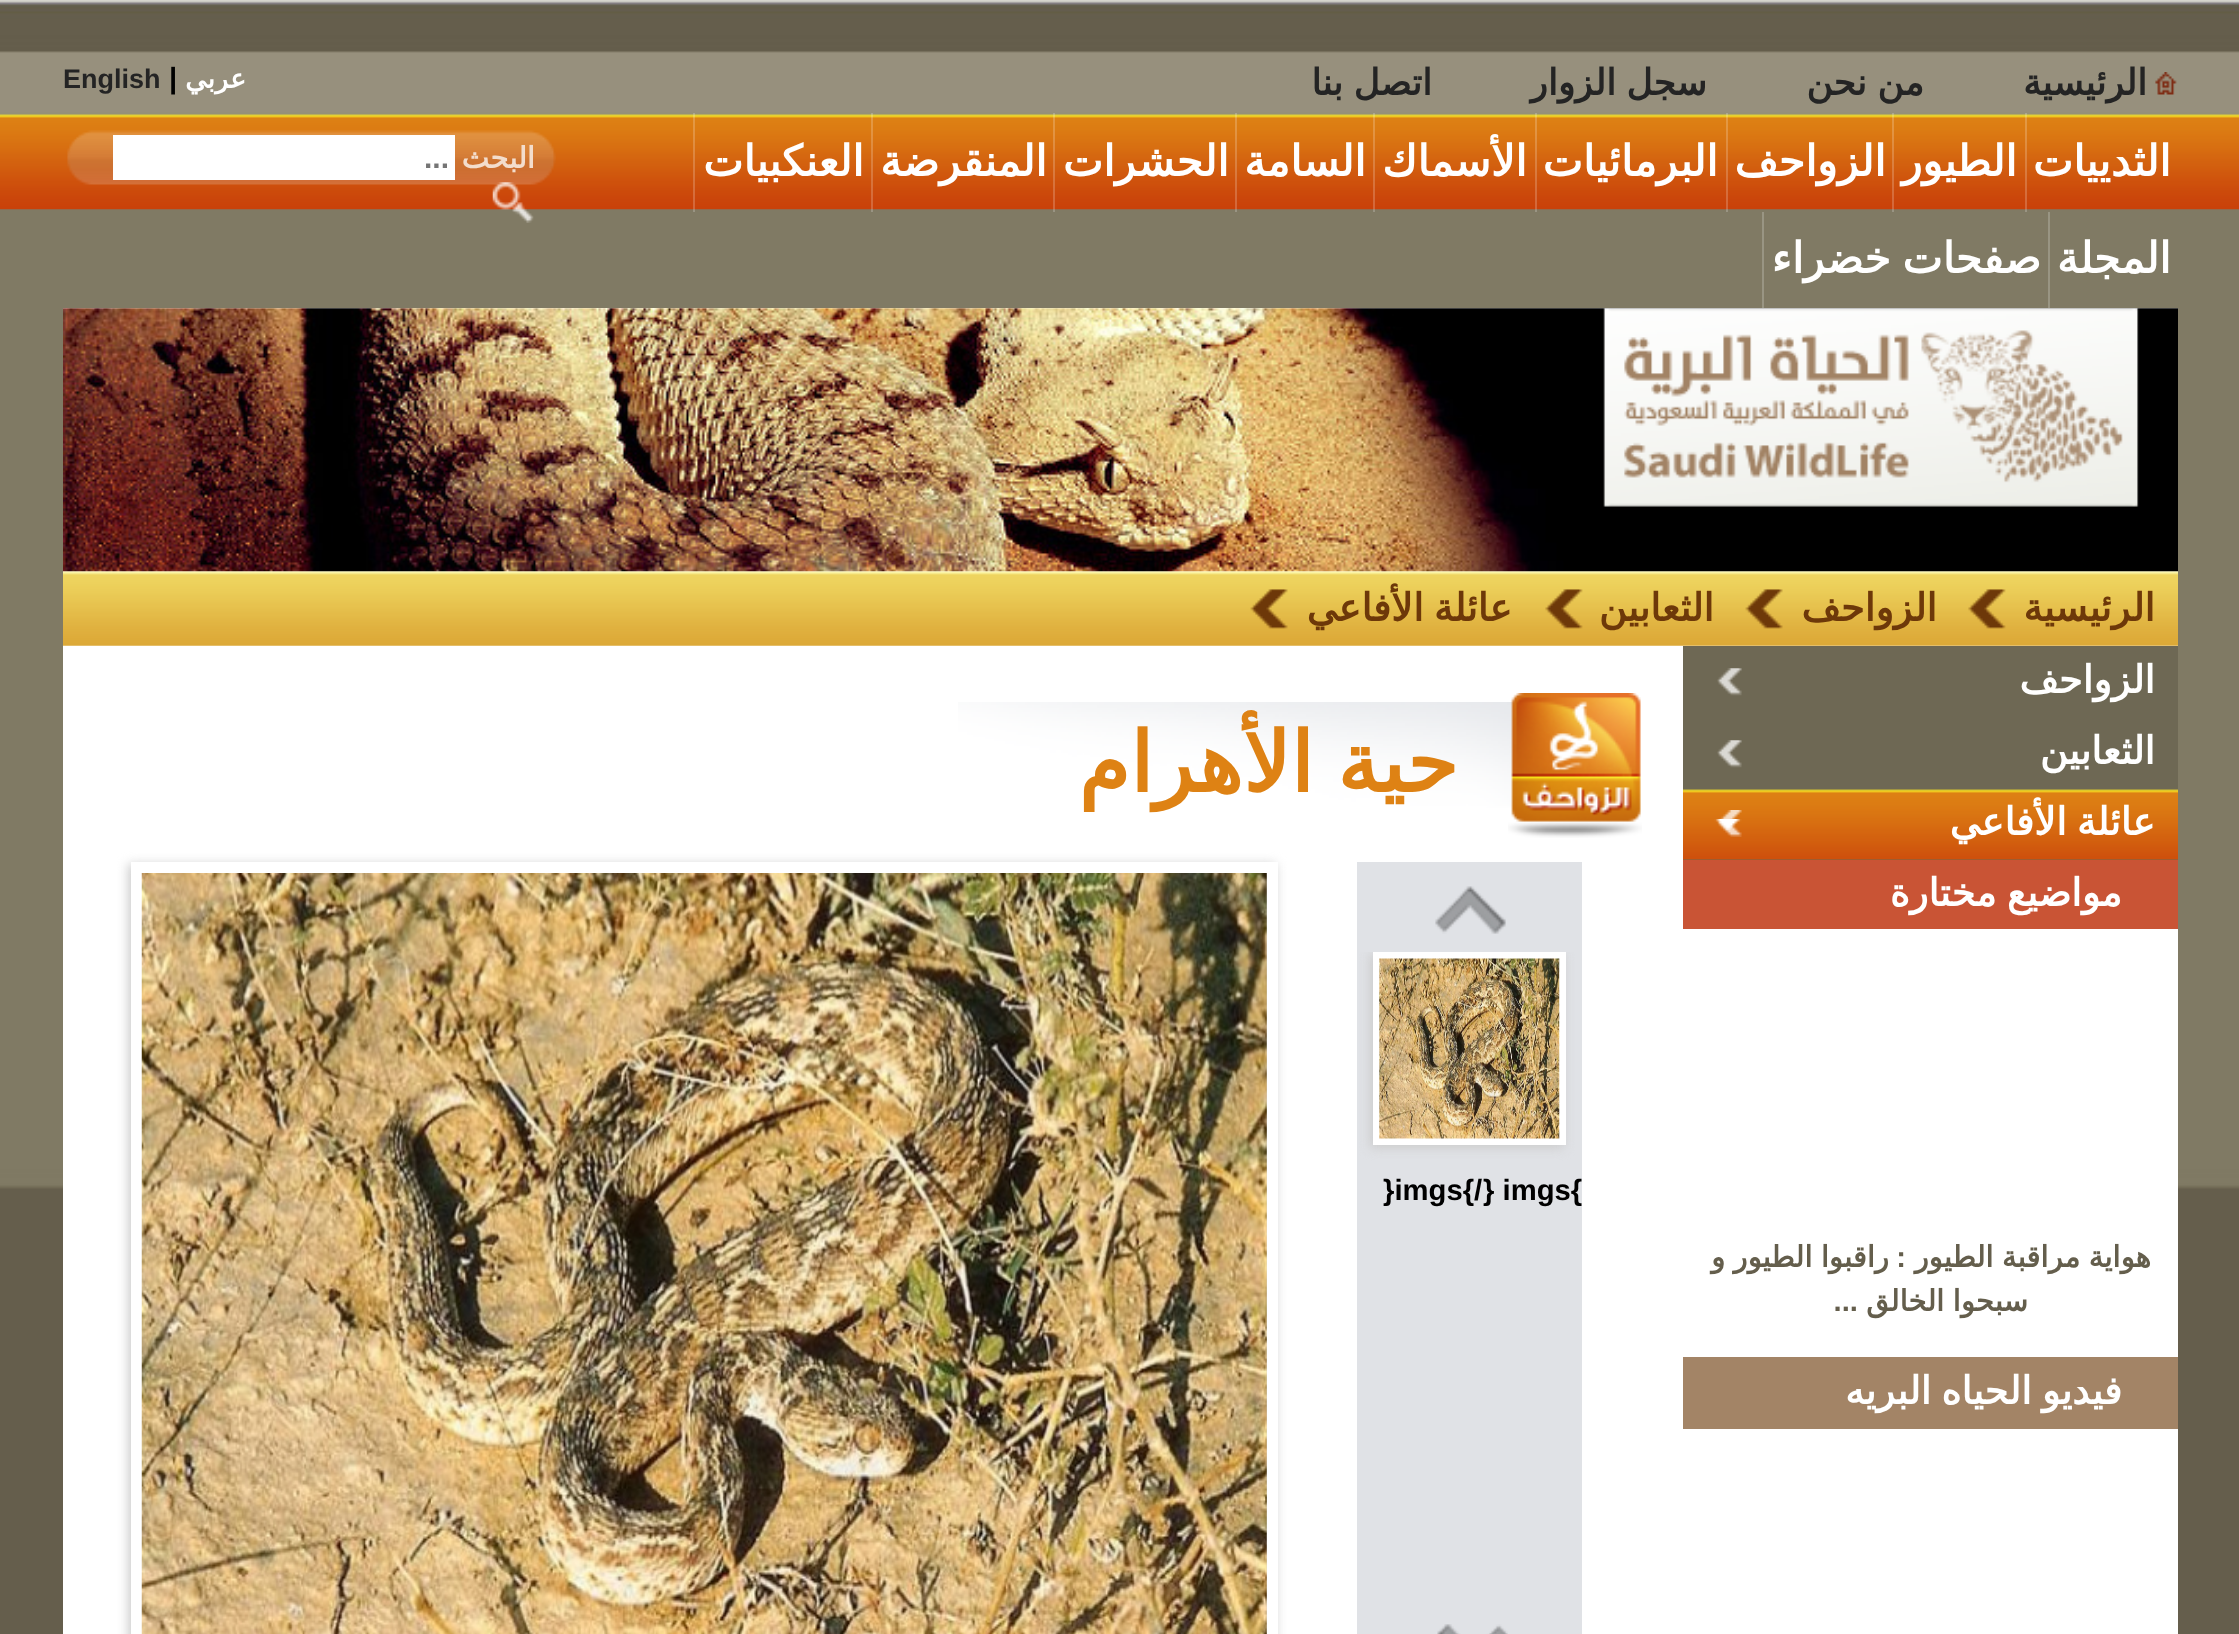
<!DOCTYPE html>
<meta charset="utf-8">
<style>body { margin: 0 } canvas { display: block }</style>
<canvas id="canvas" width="2239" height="1634"></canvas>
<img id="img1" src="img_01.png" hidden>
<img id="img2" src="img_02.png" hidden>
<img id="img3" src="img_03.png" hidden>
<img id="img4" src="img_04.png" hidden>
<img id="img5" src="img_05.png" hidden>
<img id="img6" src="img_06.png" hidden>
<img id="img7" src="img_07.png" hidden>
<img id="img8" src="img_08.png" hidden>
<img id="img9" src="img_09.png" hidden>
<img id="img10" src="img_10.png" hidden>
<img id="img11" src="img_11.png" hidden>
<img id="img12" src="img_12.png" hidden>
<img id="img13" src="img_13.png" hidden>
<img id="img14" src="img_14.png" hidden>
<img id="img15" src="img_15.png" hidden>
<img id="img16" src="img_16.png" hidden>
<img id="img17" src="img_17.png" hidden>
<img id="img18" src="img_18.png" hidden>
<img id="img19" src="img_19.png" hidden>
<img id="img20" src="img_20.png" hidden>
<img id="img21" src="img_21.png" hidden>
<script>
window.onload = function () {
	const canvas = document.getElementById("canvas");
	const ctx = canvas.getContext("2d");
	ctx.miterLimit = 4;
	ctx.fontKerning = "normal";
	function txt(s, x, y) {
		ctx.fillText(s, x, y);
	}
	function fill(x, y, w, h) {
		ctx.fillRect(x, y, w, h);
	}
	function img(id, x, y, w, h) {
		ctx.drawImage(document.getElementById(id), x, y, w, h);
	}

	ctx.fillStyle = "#FFFFFF";
	fill(0, 0, 2239, 1634);
	img("img1", 0, 0, 2239, 1634);
	img("img2", 2155, 72, 22, 23);
	img("img3", 0, 114, 2239, 96);
	ctx.fillStyle = "rgba(255, 255, 255, 0.2)";
	fill(2025, 113, 2, 99);
	fill(1892, 113, 2, 99);
	fill(1726, 113, 2, 99);
	fill(1535, 113, 2, 99);
	fill(1373, 113, 2, 99);
	fill(1235, 113, 2, 99);
	fill(1053, 113, 2, 99);
	fill(871, 113, 2, 99);
	fill(693, 113, 2, 99);
	ctx.fillStyle = "#999583";
	fill(2048, 212, 2, 96);
	fill(1762, 212, 2, 96);
	img("img4", 67, 130, 489, 55);
	ctx.fillStyle = "#FFFFFF";
	fill(113, 135, 342, 45);
	img("img5", 492, 182, 42, 41);
	fill(63, 308, 2115, 1326);
	img("img6", 63, 308, 2115, 264);
	img("img7", 1603, 308, 536, 199);
	img("img8", 63, 571, 2115, 75);
	img("img9", 1968, 589, 38, 40);
	img("img10", 1745, 589, 38, 40);
	img("img11", 1545, 589, 38, 40);
	img("img10", 1250, 589, 38, 40);
	ctx.fillStyle = "#6E6854";
	fill(1683, 646, 495, 214);
	img("img12", 1717, 668, 25, 28);
	img("img12", 1717, 740, 25, 28);
	img("img13", 1683, 789, 495, 71);
	img("img14", 1717, 810, 25, 27);
	img("img15", 1714, 819, 28, 12);
	ctx.fillStyle = "#C95435";
	fill(1683, 860, 495, 69);
	ctx.fillStyle = "#A38466";
	fill(1683, 1357, 495, 72);
	img("img16", 958, 702, 680, 106);
	img("img17", 1508, 693, 134, 145);
	ctx.fillStyle = "#E0E2E6";
	fill(1357, 862, 225, 772);
	img("img18", 1435, 886, 71, 48);
	ctx.save();
	ctx.beginPath();
	ctx.rect(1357, 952, 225, 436);
	ctx.clip();
	ctx.fillStyle = "#CCCCCC";
	ctx.filter = "blur(5.5px)";
	ctx.beginPath();
	ctx.rect(1370, 954, 194, 194);
	ctx.fill();
	ctx.filter = "none";
	ctx.restore();
	ctx.strokeStyle = "#FFFFFF";
	ctx.lineWidth = 7;
	ctx.strokeRect(1376.5, 955.5, 186, 186);
	img("img19", 1379, 958, 181, 181);
	img("img20", 1437, 1624, 71, 10);
	ctx.fillStyle = "#CCCCCC";
	ctx.filter = "blur(5.5px)";
	ctx.beginPath();
	ctx.rect(128, 864, 1148, 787);
	ctx.fill();
	ctx.filter = "none";
	ctx.lineWidth = 11;
	ctx.strokeRect(136.5, 867.5, 1136, 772);
	img("img21", 141, 873, 1126, 761);
	ctx.direction = "rtl";
	ctx.font = "bold 36px DejaVu Sans";
	ctx.fillStyle = "#242424";
	txt("الرئيسية", 2147, 95);
	ctx.wordSpacing = "-1px";
	txt("من نحن", 1924, 95);
	txt("سجل الزوار", 1707, 95);
	txt("اتصل بنا", 1432, 95);
	ctx.wordSpacing = "0px";
	ctx.font = "bold 27px DejaVu Sans";
	ctx.fillStyle = "#FFFFFF";
	txt("عربي", 246, 88);
	ctx.direction = "ltr";
	ctx.font = "bold 29.25px Liberation Sans";
	ctx.fillStyle = "#000000";
	txt("|", 169, 88);
	ctx.font = "bold 27px Liberation Sans";
	ctx.fillStyle = "#242424";
	txt("English", 63, 88);
	ctx.direction = "rtl";
	ctx.font = "bold 42.75px DejaVu Sans";
	ctx.fillStyle = "#FFFFFF";
	txt("الثدييات", 2171, 176);
	txt("الطيور", 2017, 176);
	txt("الزواحف", 1886, 176);
	txt("البرمائيات", 1718, 176);
	txt("الأسماك", 1527, 176);
	txt("السامة", 1366, 176);
	txt("الحشرات", 1229, 176);
	txt("المنقرضة", 1047, 176);
	txt("العنكبيات", 864, 176);
	txt("المجلة", 2171, 273);
	ctx.wordSpacing = "-2px";
	txt("صفحات خضراء", 2041, 273);
	ctx.wordSpacing = "0px";
	ctx.font = "bold 29.25px DejaVu Sans";
	ctx.fillStyle = "#F3DDCC";
	txt("البحث", 535, 168);
	ctx.direction = "ltr";
	ctx.font = "bold 30px Liberation Sans";
	ctx.fillStyle = "#757575";
	txt("...", 424, 168);
	ctx.direction = "rtl";
	ctx.font = "bold 38.25px DejaVu Sans";
	ctx.fillStyle = "#6D3809";
	txt("الرئيسية", 2155, 621);
	txt("الزواحف", 1937, 621);
	txt("الثعابين", 1714, 621);
	ctx.wordSpacing = "-2px";
	txt("عائلة الأفاعي", 1512, 621);
	ctx.wordSpacing = "0px";
	ctx.fillStyle = "#FFFFFF";
	txt("الزواحف", 2155, 693);
	txt("الثعابين", 2155, 764);
	ctx.wordSpacing = "-2px";
	txt("عائلة الأفاعي", 2155, 835);
	txt("مواضيع مختارة", 2122, 906);
	ctx.wordSpacing = "-1px";
	ctx.font = "bold 29.25px DejaVu Sans";
	ctx.fillStyle = "#645E4C";
	txt("هواية مراقبة الطيور", 2151, 1267);
	ctx.wordSpacing = "0px";
	ctx.font = "bold 29.25px Liberation Sans";
	txt(":", 1906, 1267);
	ctx.wordSpacing = "-1px";
	ctx.font = "bold 29.25px DejaVu Sans";
	txt("راقبوا الطيور و", 1889, 1267);
	txt("سبحوا الخالق", 2028, 1311);
	ctx.wordSpacing = "0px";
	ctx.font = "bold 29.25px Liberation Sans";
	txt("...", 1858, 1311);
	ctx.wordSpacing = "-2px";
	ctx.font = "bold 38.25px DejaVu Sans";
	ctx.fillStyle = "#FFFFFF";
	txt("فيديو الحياه البريه", 2122, 1404);
	ctx.wordSpacing = "-3px";
	ctx.font = "bold 83.25px DejaVu Sans";
	ctx.fillStyle = "#DE8214";
	txt("حية الأهرام", 1458, 792);
	ctx.wordSpacing = "0px";
	ctx.direction = "ltr";
	ctx.font = "bold 29.25px Liberation Sans";
	ctx.fillStyle = "#000000";
	txt("} imgs{", 1483, 1200);
	txt("}imgs{/", 1383, 1200);
};
</script>
